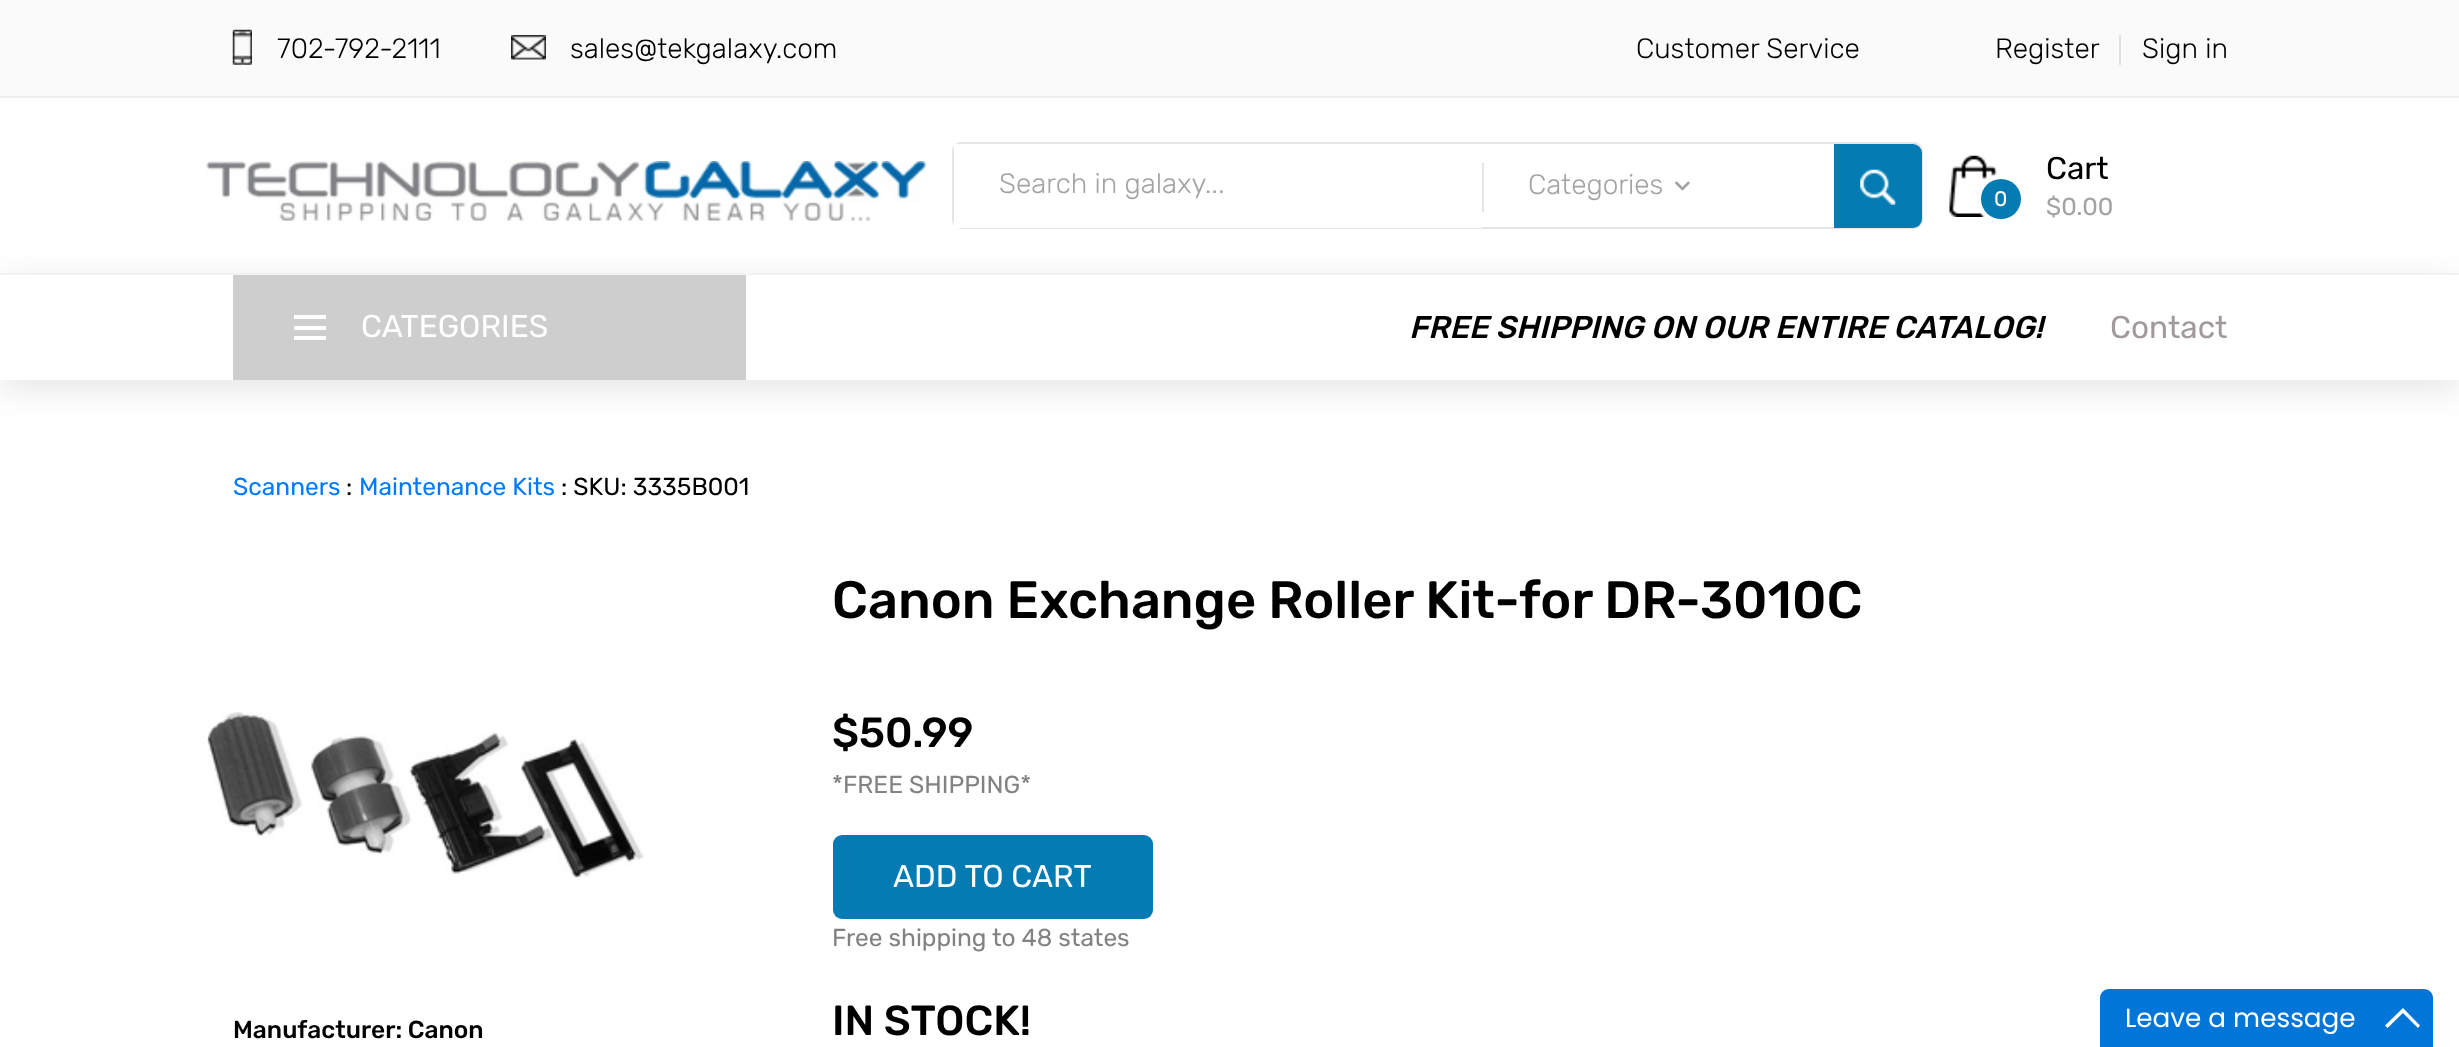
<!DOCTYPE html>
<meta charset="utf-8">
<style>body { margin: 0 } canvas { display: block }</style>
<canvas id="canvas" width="2459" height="1047"></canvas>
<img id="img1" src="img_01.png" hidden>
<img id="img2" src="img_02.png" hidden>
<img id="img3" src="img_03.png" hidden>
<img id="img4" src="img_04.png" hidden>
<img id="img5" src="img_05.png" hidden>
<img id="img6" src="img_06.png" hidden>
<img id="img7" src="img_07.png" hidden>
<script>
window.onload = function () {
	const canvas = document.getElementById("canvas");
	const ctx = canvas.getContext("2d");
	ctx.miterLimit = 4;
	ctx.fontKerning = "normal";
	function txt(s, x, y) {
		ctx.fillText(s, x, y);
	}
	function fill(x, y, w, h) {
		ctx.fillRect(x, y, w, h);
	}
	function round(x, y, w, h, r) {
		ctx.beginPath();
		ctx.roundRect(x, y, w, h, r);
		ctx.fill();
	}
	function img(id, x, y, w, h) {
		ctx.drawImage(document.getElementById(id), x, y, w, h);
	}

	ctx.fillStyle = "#FFFFFF";
	fill(0, 0, 2459, 1047);
	ctx.fillStyle = "#FAFAFA";
	fill(0, 0, 2459, 96);
	ctx.fillStyle = "#EEEEEE";
	fill(0, 96, 2459, 2);
	img("img1", 232, 29, 20, 36);
	img("img2", 511, 35, 35, 25);
	ctx.fillStyle = "#E1E1E1";
	fill(2119, 35, 2, 30);
	img("img3", 206, 161, 720, 60);
	ctx.fillStyle = "rgba(0, 0, 0, 0.1)";
	ctx.filter = "blur(17.5px)";
	ctx.beginPath();
	ctx.rect(0, 282, 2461, 107);
	ctx.fill();
	ctx.filter = "none";
	ctx.beginPath();
	ctx.roundRect(953, 143, 969, 85, 8);
	ctx.strokeStyle = "#E5E5E5";
	ctx.lineWidth = 2;
	ctx.stroke();
	ctx.fillStyle = "#FFFFFF";
	fill(954, 144, 528, 84);
	ctx.fillStyle = "#E5E5E5";
	fill(1482, 163, 2, 49);
	img("img4", 1675, 181, 15, 10);
	ctx.fillStyle = "#047BB2";
	ctx.beginPath();
	ctx.roundRect(1834, 144, 88, 84, [0, 9, 9, 0]);
	ctx.fill();
	img("img5", 1860, 169, 36, 36);
	img("img6", 1949, 155, 48, 62);
	ctx.beginPath();
	ctx.arc(2001, 199, 20, 0, Math.PI * 2);
	ctx.fill();
	ctx.fillStyle = "#FFFFFF";
	fill(0, 275, 2459, 105);
	ctx.fillStyle = "#F2F2F2";
	fill(0, 273, 2459, 2);
	ctx.fillStyle = "#CECECE";
	fill(233, 275, 513, 105);
	ctx.fillStyle = "#FFFFFF";
	fill(294, 315, 32, 4);
	fill(294, 326, 32, 4);
	fill(294, 336, 32, 4);
	img("img7", 207, 712, 437, 166);
	ctx.fillStyle = "#047BB2";
	round(833, 835, 320, 84, 9);
	ctx.fillStyle = "#0275D8";
	ctx.beginPath();
	ctx.moveTo(2109, 989);
	ctx.lineTo(2424, 989);
	ctx.bezierCurveTo(2429, 989, 2433, 993, 2433, 998);
	ctx.lineTo(2433, 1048);
	ctx.lineTo(2100, 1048);
	ctx.lineTo(2100, 998);
	ctx.bezierCurveTo(2100, 993, 2104, 989, 2109, 989);
	ctx.closePath();
	ctx.fill();
	ctx.fillStyle = "#FFFFFF";
	ctx.beginPath();
	ctx.moveTo(2403, 1008);
	ctx.lineTo(2420, 1025.5);
	ctx.lineTo(2418, 1028);
	ctx.lineTo(2403, 1013);
	ctx.lineTo(2387.5, 1028);
	ctx.lineTo(2385, 1025.5);
	ctx.closePath();
	ctx.fill();
	ctx.font = "300 28px Rubik";
	ctx.fillStyle = "#000000";
	txt("702-792-2111", 277, 58);
	txt("sales@tekgalaxy.com", 570, 58);
	txt("Customer Service", 1636, 58);
	txt("Register", 1995, 58);
	txt("Sign in", 2142, 58);
	ctx.fillStyle = "#A3A3A3";
	txt("Search in galaxy...", 999, 193);
	txt("Categories", 1528, 194);
	ctx.font = "21px Rubik";
	ctx.fillStyle = "#FFFFFF";
	txt("0", 1994, 206);
	ctx.font = "31.5px Rubik";
	ctx.fillStyle = "#000000";
	txt("Cart", 2046, 179);
	ctx.font = "24.5px Rubik";
	ctx.fillStyle = "#A3A3A3";
	txt("$0.00", 2046, 215);
	ctx.font = "31.5px Rubik";
	ctx.fillStyle = "#FFFFFF";
	txt("CATEGORIES", 361, 337);
	ctx.font = "italic 500 31.5px Rubik";
	ctx.fillStyle = "#000000";
	txt("FREE SHIPPING ON OUR ENTIRE CATALOG!", 1409, 338);
	ctx.font = "31.5px Rubik";
	ctx.fillStyle = "#A19A9A";
	txt("Contact", 2110, 338);
	ctx.font = "24.5px Rubik";
	ctx.fillStyle = "#007BFF";
	txt("Scanners", 233, 495);
	ctx.fillStyle = "#000000";
	txt(":", 346, 495);
	ctx.fillStyle = "#007BFF";
	txt("Maintenance Kits", 359, 495);
	ctx.fillStyle = "#000000";
	txt(": SKU: 3335B001", 561, 495);
	ctx.font = "500 24.5px Rubik";
	txt("Manufacturer: Canon", 233, 1038);
	ctx.font = "500 52.5px Rubik";
	txt("Canon Exchange Roller Kit-for DR-3010C", 832, 618);
	ctx.font = "500 42px Rubik";
	txt("$50.99", 832, 747);
	ctx.font = "24.5px Rubik";
	ctx.fillStyle = "#828282";
	txt("*FREE SHIPPING*", 832, 793);
	ctx.font = "31.5px Rubik";
	ctx.fillStyle = "#FFFFFF";
	txt("ADD TO CART", 893, 887);
	ctx.font = "24.5px Rubik";
	ctx.fillStyle = "#828282";
	txt("Free shipping to 48 states", 832, 946);
	ctx.font = "500 42px Rubik";
	ctx.fillStyle = "#000000";
	txt("IN STOCK!", 832, 1035);
	ctx.font = "26.25px Poppins";
	ctx.fillStyle = "#FFFFFF";
	txt("Leave a message", 2125, 1027);
};
</script>
